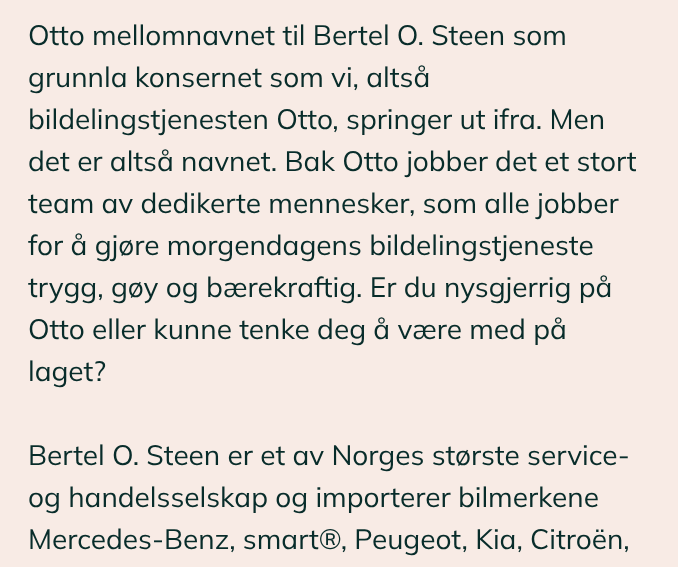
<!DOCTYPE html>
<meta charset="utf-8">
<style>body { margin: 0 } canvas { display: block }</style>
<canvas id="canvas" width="678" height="567"></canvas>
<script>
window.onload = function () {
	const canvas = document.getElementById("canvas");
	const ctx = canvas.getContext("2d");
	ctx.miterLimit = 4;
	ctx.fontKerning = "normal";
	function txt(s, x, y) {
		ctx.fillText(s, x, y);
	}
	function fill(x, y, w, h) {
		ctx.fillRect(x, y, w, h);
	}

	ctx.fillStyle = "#F8EBE5";
	fill(0, 0, 678, 567);
	ctx.font = "28px Mulish";
	ctx.fillStyle = "#082C2A";
	txt("Otto mellomnavnet til Bertel O. Steen som", 28, 45);
	txt("grunnla konsernet som vi, altså", 28, 87);
	txt("bildelingstjenesten Otto, springer ut ifra. Men", 28, 129);
	txt("det er altså navnet. Bak Otto jobber det et stort", 28, 171);
	txt("team av dedikerte mennesker, som alle jobber", 28, 213);
	txt("for å gjøre morgendagens bildelingstjeneste", 28, 255);
	txt("trygg, gøy og bærekraftig. Er du nysgjerrig på", 28, 297);
	txt("Otto eller kunne tenke deg å være med på", 28, 339);
	txt("laget?", 28, 381);
	txt("Bertel O. Steen er et av Norges største service-", 28, 465);
	txt("og handelsselskap og importerer bilmerkene", 28, 507);
	txt("Mercedes-Benz, smart®, Peugeot, Kia, Citroën,", 28, 549);
};
</script>
